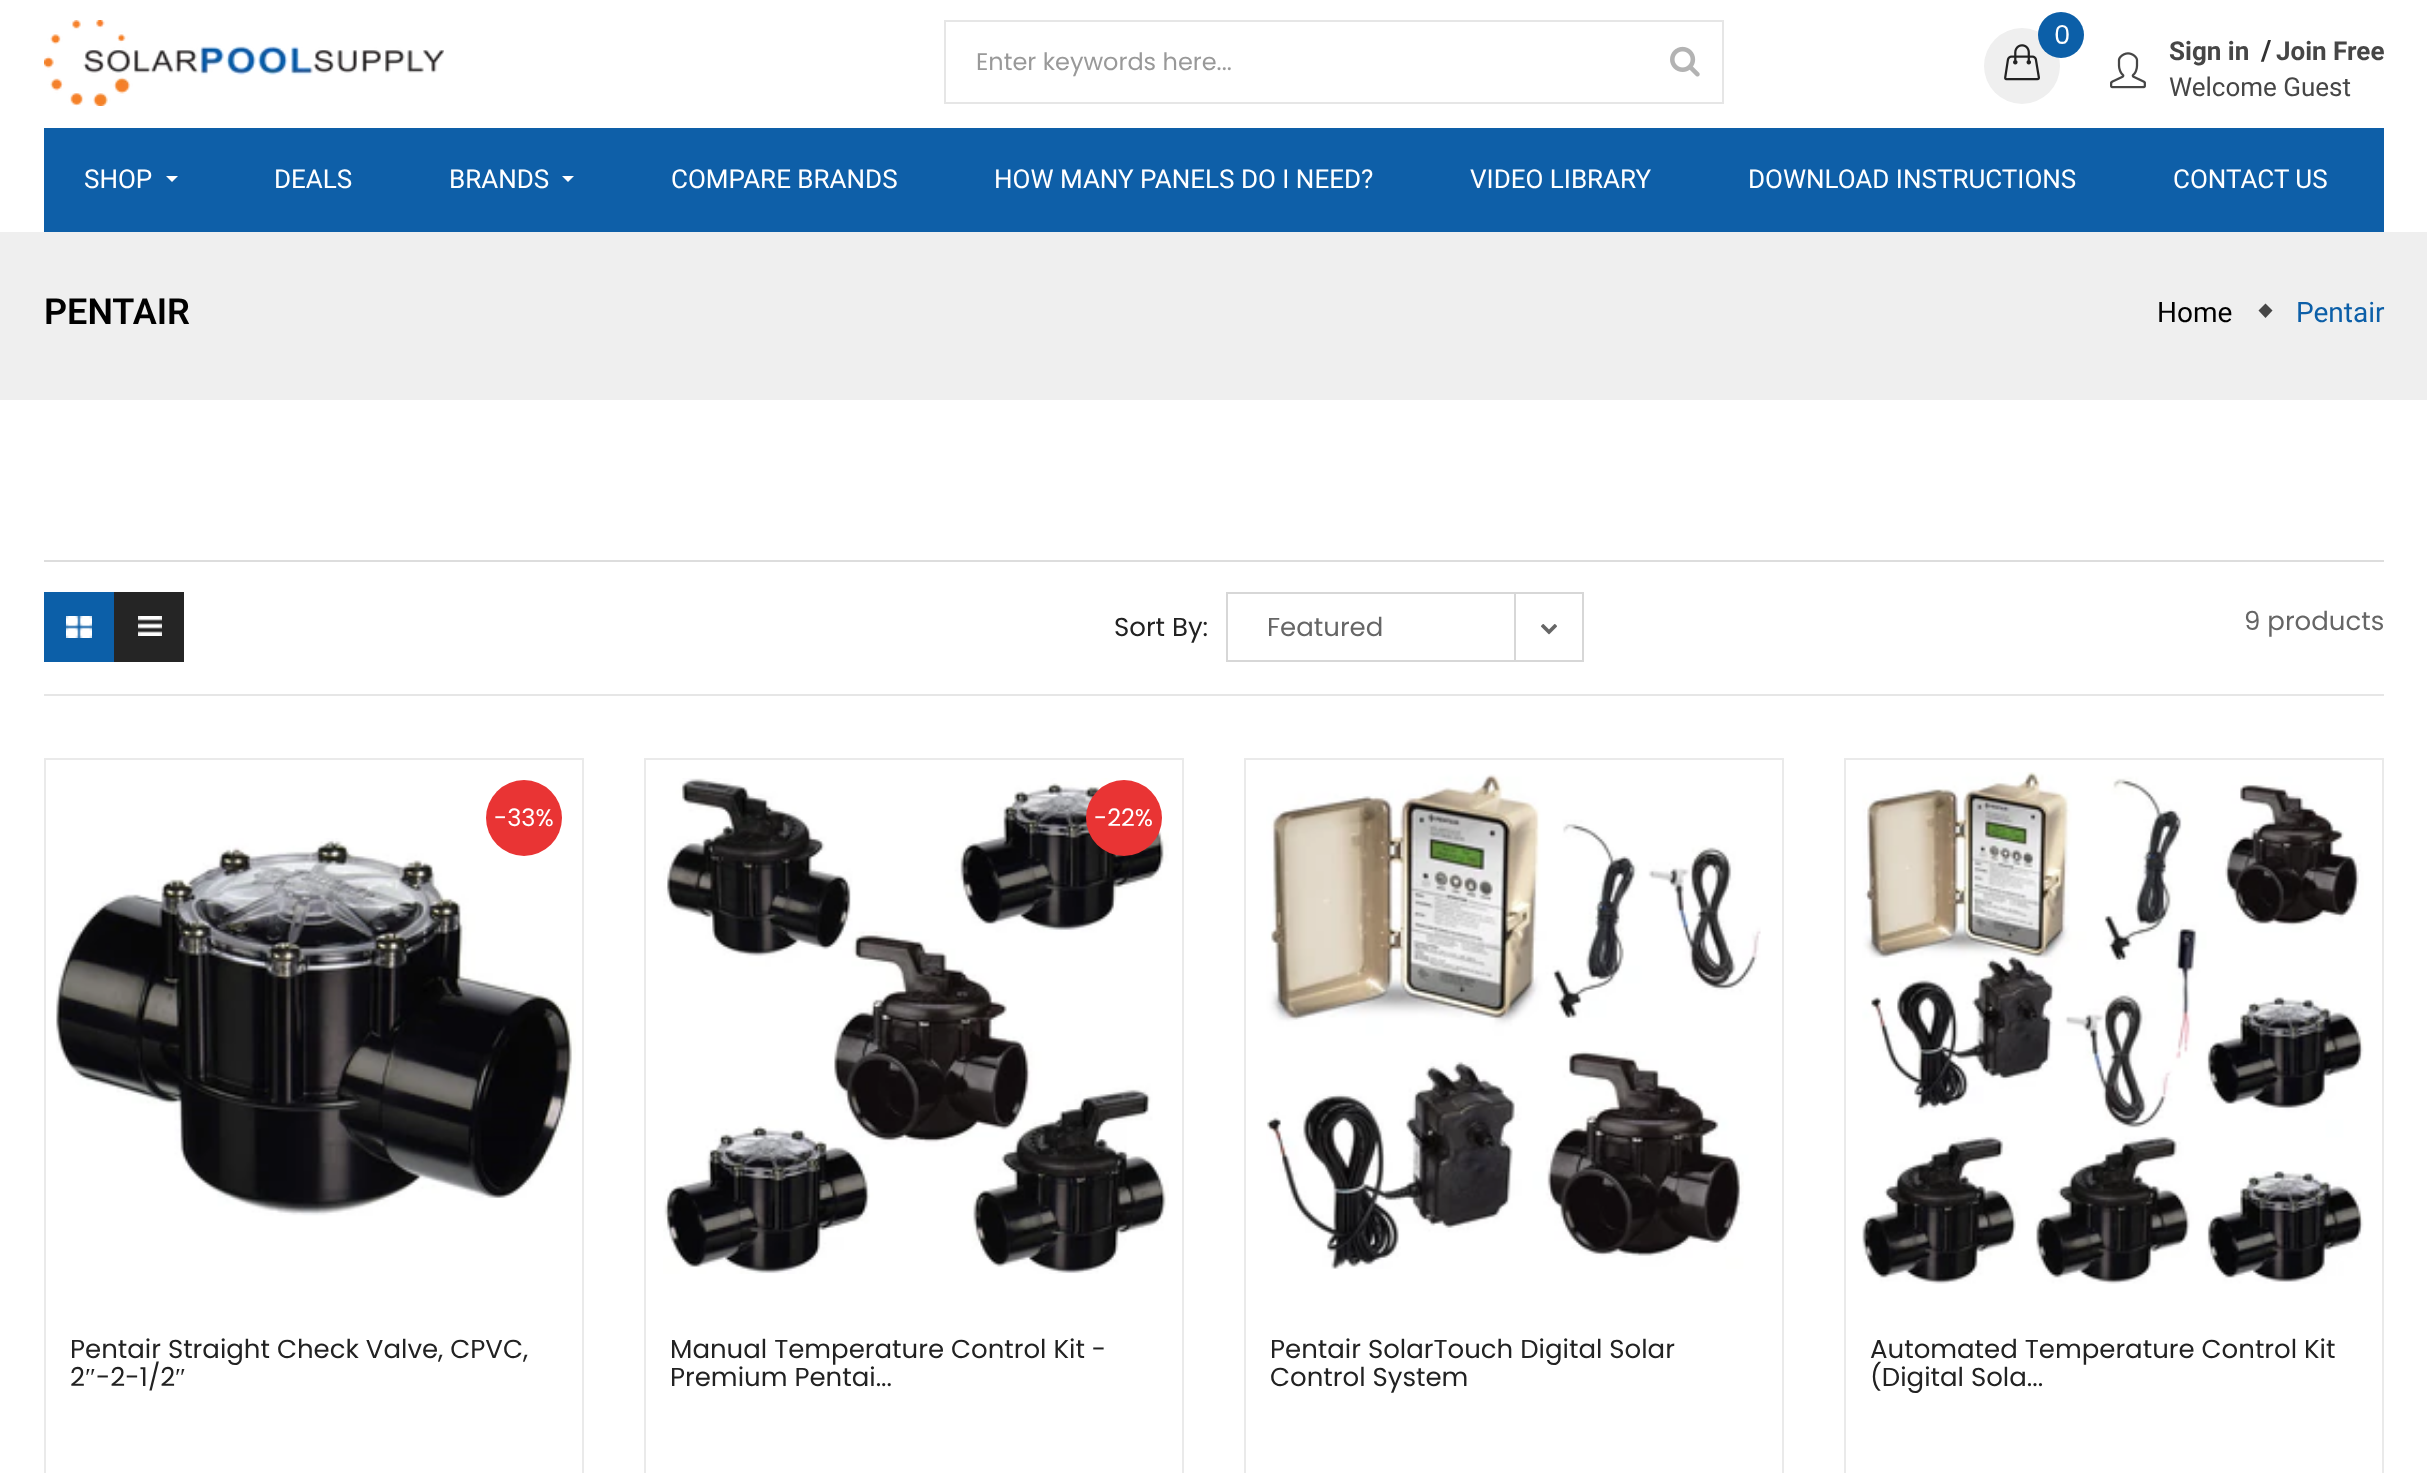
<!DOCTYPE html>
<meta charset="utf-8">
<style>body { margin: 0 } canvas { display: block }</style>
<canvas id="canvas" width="2427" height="1473"></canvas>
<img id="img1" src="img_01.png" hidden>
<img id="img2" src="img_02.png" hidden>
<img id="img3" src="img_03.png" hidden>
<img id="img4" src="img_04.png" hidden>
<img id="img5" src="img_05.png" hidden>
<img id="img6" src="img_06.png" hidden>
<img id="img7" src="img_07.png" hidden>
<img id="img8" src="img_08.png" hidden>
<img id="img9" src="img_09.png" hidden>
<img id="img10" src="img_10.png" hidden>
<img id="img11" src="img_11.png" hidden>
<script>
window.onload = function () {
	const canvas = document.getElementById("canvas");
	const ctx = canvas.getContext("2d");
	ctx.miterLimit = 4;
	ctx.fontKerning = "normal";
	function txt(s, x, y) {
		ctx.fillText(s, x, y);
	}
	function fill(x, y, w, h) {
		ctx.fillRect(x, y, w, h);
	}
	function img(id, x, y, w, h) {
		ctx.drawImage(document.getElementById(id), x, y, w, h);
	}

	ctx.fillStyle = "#FFFFFF";
	fill(0, 0, 2427, 1473);
	img("img1", 44, 20, 400, 86);
	ctx.strokeStyle = "#E6E6E6";
	ctx.lineWidth = 2;
	ctx.strokeRect(945, 21, 778, 82);
	img("img2", 1670, 46, 30, 31);
	ctx.fillStyle = "#EFEFEF";
	ctx.beginPath();
	ctx.arc(2022, 66, 38, 0, Math.PI * 2);
	ctx.fill();
	img("img3", 2004, 44, 36, 37);
	ctx.fillStyle = "#0C5FA8";
	ctx.beginPath();
	ctx.arc(2061, 35, 23, 0, Math.PI * 2);
	ctx.fill();
	img("img4", 2110, 52, 36, 37);
	ctx.fillStyle = "#0E5FA8";
	fill(44, 128, 2340, 104);
	ctx.fillStyle = "#FFFFFF";
	ctx.beginPath();
	ctx.moveTo(166, 176);
	ctx.lineTo(178, 176);
	ctx.lineTo(172, 182);
	ctx.closePath();
	ctx.fill();
	ctx.beginPath();
	ctx.moveTo(562, 176);
	ctx.lineTo(574, 176);
	ctx.lineTo(568, 182);
	ctx.closePath();
	ctx.fill();
	ctx.fillStyle = "#EFEFEF";
	fill(0, 232, 2427, 168);
	ctx.fillStyle = "#464646";
	ctx.beginPath();
	ctx.moveTo(2265.5, 303.5);
	ctx.lineTo(2272.5, 310.5);
	ctx.lineTo(2265.5, 318);
	ctx.lineTo(2258.5, 310.5);
	ctx.closePath();
	ctx.fill();
	ctx.fillStyle = "#DDDDDD";
	fill(44, 560, 2340, 2);
	ctx.fillStyle = "#E6E6E6";
	fill(44, 694, 2340, 2);
	ctx.fillStyle = "#0C5FA8";
	fill(44, 592, 70, 70);
	img("img5", 66, 616, 26, 22);
	ctx.fillStyle = "#252525";
	fill(114, 592, 70, 70);
	img("img6", 138, 616, 24, 20);
	ctx.strokeStyle = "#D7D7D7";
	ctx.strokeRect(1227, 593, 288, 68);
	ctx.strokeRect(1515, 593, 68, 68);
	img("img7", 1541, 624, 16, 11);
	ctx.strokeStyle = "#EAEAEA";
	ctx.strokeRect(45, 759, 538, 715);
	img("img8", 56, 838, 520, 378);
	ctx.fillStyle = "#E93434";
	ctx.beginPath();
	ctx.arc(524, 818, 38, 0, Math.PI * 2);
	ctx.fill();
	ctx.strokeRect(645, 759, 538, 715);
	img("img9", 663, 778, 506, 496);
	ctx.beginPath();
	ctx.arc(1124, 818, 38, 0, Math.PI * 2);
	ctx.fill();
	ctx.strokeRect(1245, 759, 538, 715);
	img("img10", 1266, 774, 495, 495);
	ctx.strokeRect(1845, 759, 538, 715);
	img("img11", 1862, 772, 502, 512);
	ctx.font = "24px Poppins";
	ctx.fillStyle = "#999999";
	txt("Enter keywords here...", 976, 70);
	ctx.font = "26px Poppins";
	ctx.fillStyle = "#FFFFFF";
	txt("0", 2054, 44);
	ctx.font = "bold 26px Roboto";
	ctx.fillStyle = "#464646";
	txt("Sign in", 2169, 60);
	ctx.font = "bold 28px Roboto";
	ctx.fillStyle = "#333333";
	txt("/", 2261, 60);
	ctx.font = "bold 26px Roboto";
	ctx.fillStyle = "#464646";
	txt("Join Free", 2276, 60);
	ctx.font = "26px Roboto";
	txt("Welcome Guest", 2169, 96);
	ctx.fillStyle = "#FFFFFF";
	txt("SHOP", 84, 188);
	txt("DEALS", 274, 188);
	txt("BRANDS", 449, 188);
	txt("COMPARE BRANDS", 671, 188);
	txt("HOW MANY PANELS DO I NEED?", 994, 188);
	txt("VIDEO LIBRARY", 1470, 188);
	txt("DOWNLOAD INSTRUCTIONS", 1748, 188);
	txt("CONTACT US", 2173, 188);
	ctx.font = "600 36px Roboto";
	ctx.fillStyle = "#000000";
	txt("PENTAIR", 44, 324);
	ctx.font = "28px Roboto";
	txt("Home", 2157, 322);
	ctx.fillStyle = "#0C5FA8";
	txt("Pentair", 2296, 322);
	ctx.font = "26px Poppins";
	ctx.fillStyle = "#222222";
	txt("Sort By:", 1114, 636);
	ctx.fillStyle = "#666666";
	txt("Featured", 1267, 636);
	txt("9 products", 2244, 630);
	ctx.font = "24px Poppins";
	ctx.fillStyle = "#FFFFFF";
	txt("-33%", 494, 826);
	ctx.font = "26px Poppins";
	ctx.fillStyle = "#222222";
	txt("Pentair Straight Check Valve, CPVC,", 70, 1358);
	txt("2", 70, 1386);
	ctx.font = "26px Liberation Serif";
	txt("″", 85, 1386);
	ctx.font = "26px Poppins";
	txt("-2-1/2", 96, 1386);
	ctx.font = "26px Liberation Serif";
	txt("″", 175, 1386);
	ctx.font = "24px Poppins";
	ctx.fillStyle = "#FFFFFF";
	txt("-22%", 1094, 826);
	ctx.font = "26px Poppins";
	ctx.fillStyle = "#222222";
	txt("Manual Temperature Control Kit -", 670, 1358);
	txt("Premium Pentai...", 670, 1386);
	txt("Pentair SolarTouch Digital Solar", 1270, 1358);
	txt("Control System", 1270, 1386);
	txt("Automated Temperature Control Kit", 1870, 1358);
	txt("(Digital Sola...", 1870, 1386);
};
</script>
